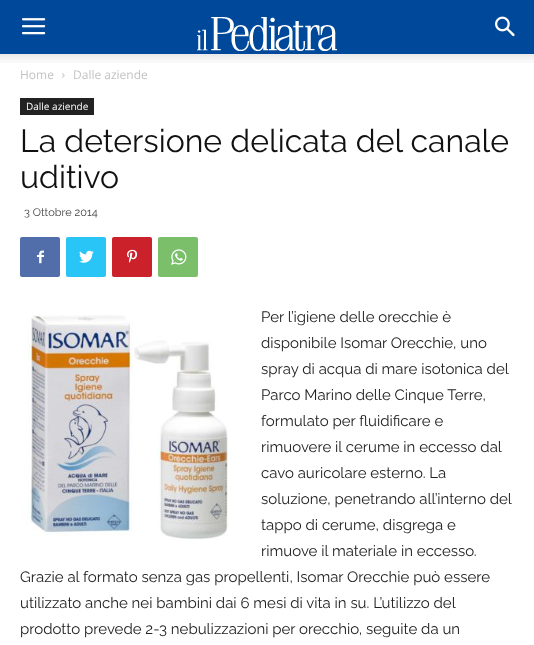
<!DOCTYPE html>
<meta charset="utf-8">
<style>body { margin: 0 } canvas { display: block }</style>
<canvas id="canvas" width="534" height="645"></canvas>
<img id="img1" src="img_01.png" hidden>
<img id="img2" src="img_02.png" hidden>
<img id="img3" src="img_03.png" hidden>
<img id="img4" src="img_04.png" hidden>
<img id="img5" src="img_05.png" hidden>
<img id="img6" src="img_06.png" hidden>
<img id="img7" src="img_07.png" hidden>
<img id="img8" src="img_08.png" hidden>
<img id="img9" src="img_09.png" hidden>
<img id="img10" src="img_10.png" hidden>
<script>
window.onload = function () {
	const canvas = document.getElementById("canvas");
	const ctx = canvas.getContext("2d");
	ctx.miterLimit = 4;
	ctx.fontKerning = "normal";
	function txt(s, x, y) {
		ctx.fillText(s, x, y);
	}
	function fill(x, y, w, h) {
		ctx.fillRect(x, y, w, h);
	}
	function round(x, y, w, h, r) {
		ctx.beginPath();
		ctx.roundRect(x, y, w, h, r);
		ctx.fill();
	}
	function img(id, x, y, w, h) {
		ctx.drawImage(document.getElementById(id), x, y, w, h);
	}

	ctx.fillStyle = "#FFFFFF";
	fill(0, 0, 534, 645);
	ctx.fillStyle = "#004899";
	fill(0, 0, 534, 54);
	img("img1", 22, 18, 24, 17);
	img("img2", 197, 17, 140, 34);
	img("img3", 495, 16, 20, 21);
	img("img4", 0, 54, 534, 9);
	img("img5", 62, 73, 3, 5);
	ctx.fillStyle = "#222222";
	fill(20, 98, 74, 17);
	ctx.fillStyle = "#516EAB";
	round(20, 237, 40, 40, 2);
	img("img6", 37, 250, 7, 14);
	ctx.fillStyle = "#29C5F6";
	round(66, 237, 40, 40, 2);
	img("img7", 79, 250, 15, 13);
	ctx.fillStyle = "#CA212A";
	round(112, 237, 40, 40, 2);
	img("img8", 127, 249, 11, 14);
	ctx.fillStyle = "#7BBF6A";
	round(158, 237, 40, 40, 2);
	img("img9", 171, 249, 16, 16);
	img("img10", 20, 315, 214, 225);
	ctx.font = "12px Open Sans";
	ctx.fillStyle = "#C3C3C3";
	txt("Home", 20, 79);
	txt("Dalle aziende", 73, 79);
	ctx.font = "10px Open Sans";
	ctx.fillStyle = "#FFFFFF";
	txt("Dalle aziende", 26, 110);
	ctx.font = "32px Raleway";
	ctx.fillStyle = "#111111";
	txt("La detersione delicata del canale", 20, 152);
	txt("uditivo", 20, 188);
	ctx.font = "11px Raleway";
	ctx.fillStyle = "#444444";
	txt("3 Ottobre 2014", 24, 216);
	ctx.font = "15px Raleway";
	ctx.fillStyle = "#222222";
	txt("Per l’igiene delle orecchie è", 261, 322);
	txt("disponibile Isomar Orecchie, uno", 261, 348);
	txt("spray di acqua di mare isotonica del", 261, 374);
	txt("Parco Marino delle Cinque Terre,", 261, 400);
	txt("formulato per fluidificare e", 261, 426);
	txt("rimuovere il cerume in eccesso dal", 261, 452);
	txt("cavo auricolare esterno. La", 261, 478);
	txt("soluzione, penetrando all’interno del", 261, 504);
	txt("tappo di cerume, disgrega e", 261, 530);
	txt("rimuove il materiale in eccesso.", 261, 556);
	txt("Grazie al formato senza gas propellenti, Isomar Orecchie può essere", 20, 582);
	txt("utilizzato anche nei bambini dai 6 mesi di vita in su. L’utilizzo del", 20, 608);
	txt("prodotto prevede 2-3 nebulizzazioni per orecchio, seguite da un", 20, 634);
};
</script>
